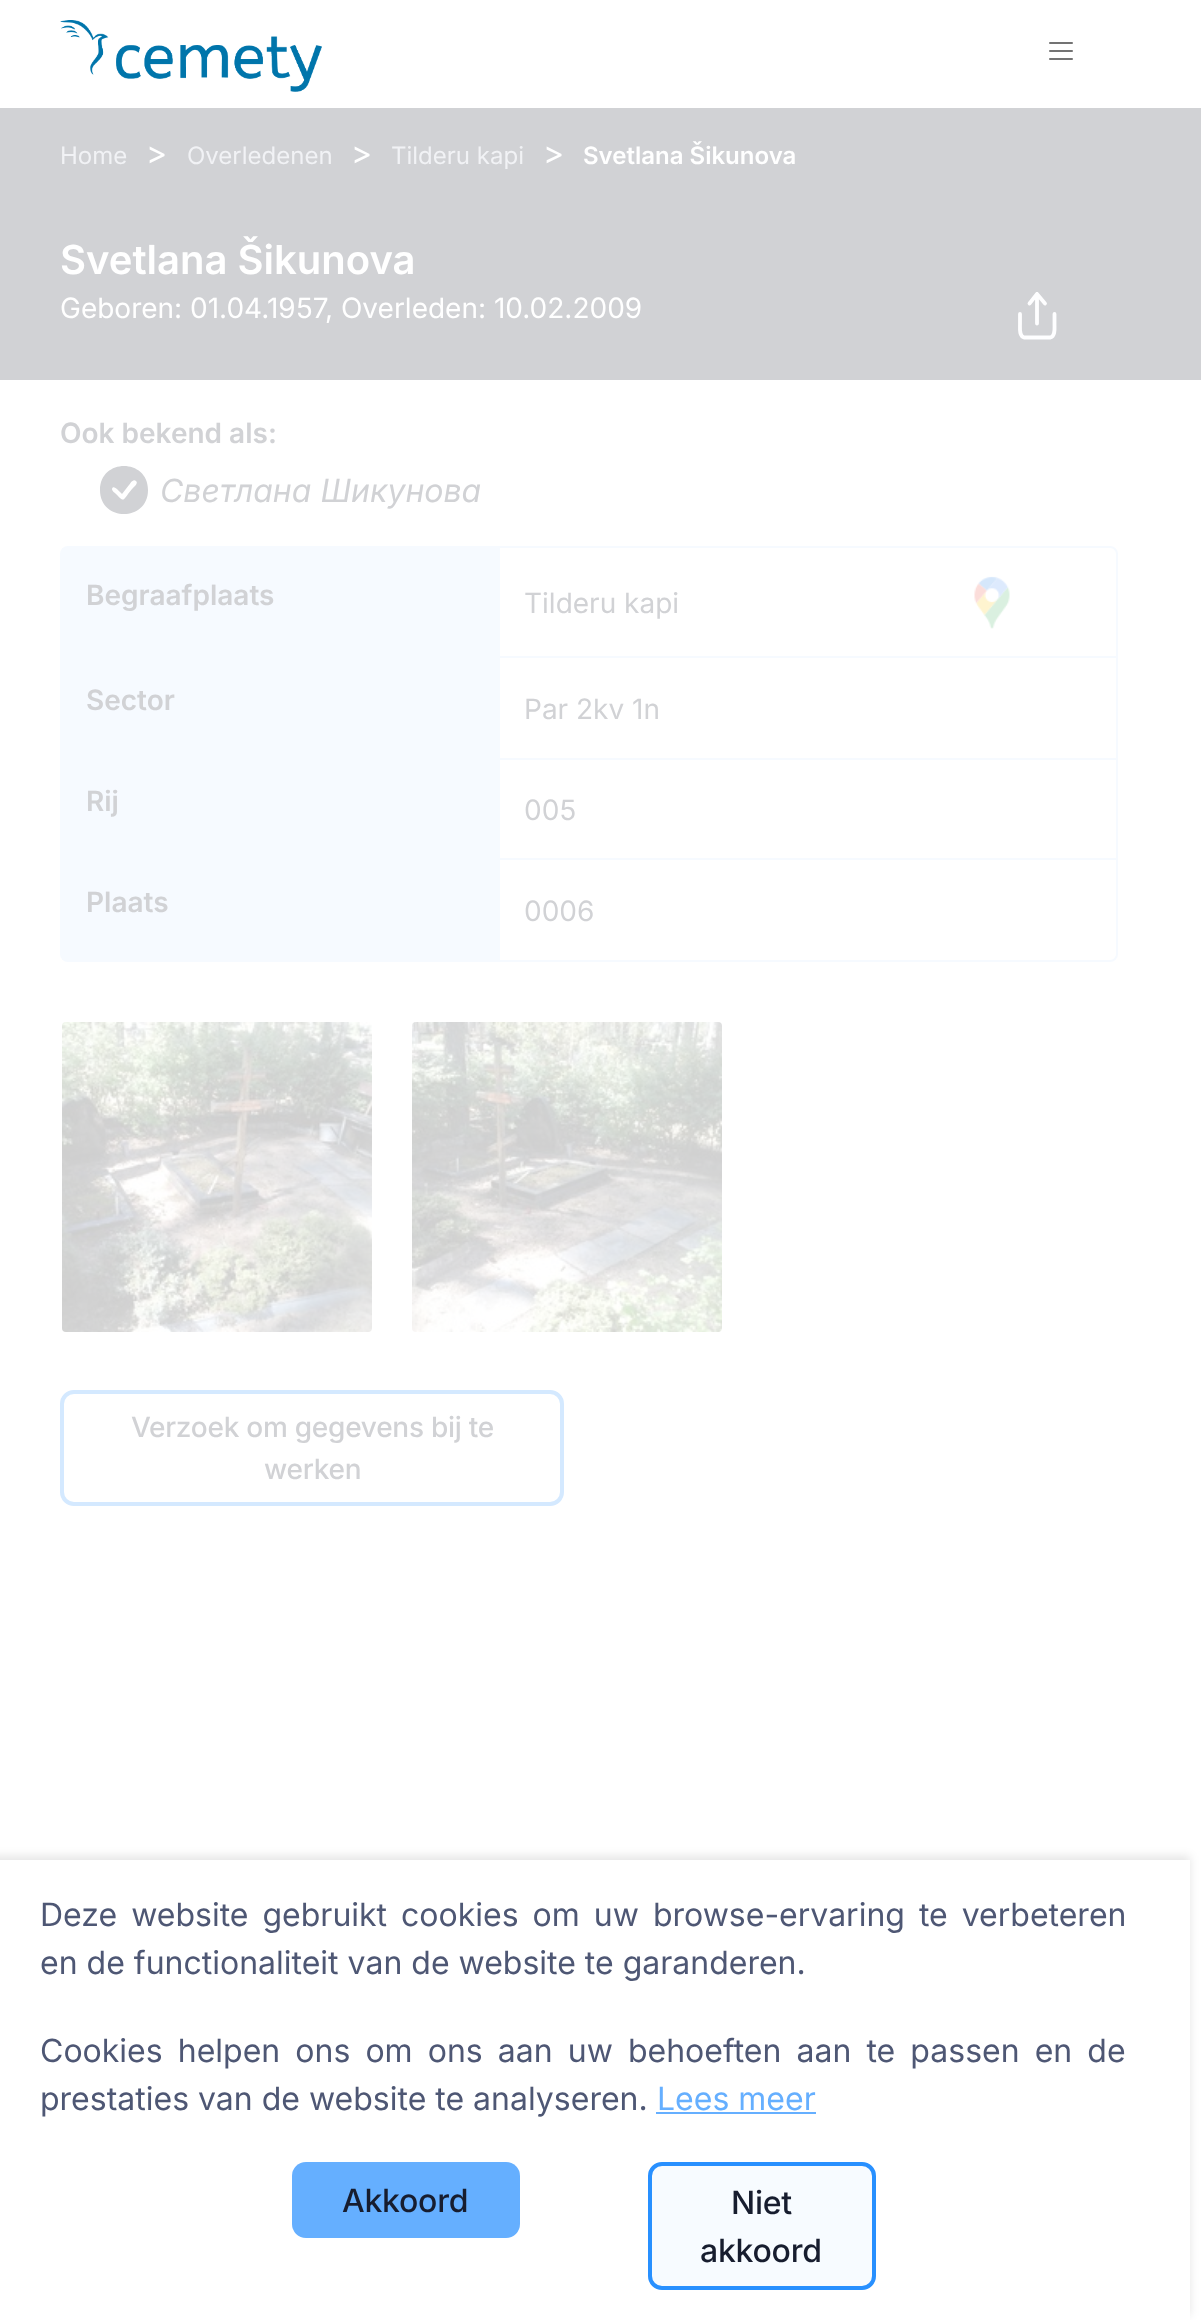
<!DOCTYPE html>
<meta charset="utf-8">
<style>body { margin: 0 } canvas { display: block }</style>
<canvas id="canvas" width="1201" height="2320"></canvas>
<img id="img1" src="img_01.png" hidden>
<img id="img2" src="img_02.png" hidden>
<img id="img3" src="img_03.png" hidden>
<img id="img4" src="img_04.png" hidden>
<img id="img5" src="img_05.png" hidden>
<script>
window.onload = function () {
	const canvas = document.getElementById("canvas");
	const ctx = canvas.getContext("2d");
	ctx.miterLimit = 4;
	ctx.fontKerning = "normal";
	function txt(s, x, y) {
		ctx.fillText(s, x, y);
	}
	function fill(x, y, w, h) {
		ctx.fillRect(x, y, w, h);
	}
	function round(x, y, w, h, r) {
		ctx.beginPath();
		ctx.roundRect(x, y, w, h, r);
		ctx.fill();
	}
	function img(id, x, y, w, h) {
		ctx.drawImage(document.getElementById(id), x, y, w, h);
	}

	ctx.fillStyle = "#FFFFFF";
	fill(0, 0, 1201, 2320);
	img("img1", 60, 20, 262, 72);
	img("img2", 1049, 42, 24, 18);
	ctx.fillStyle = "#D1D2D5";
	fill(0, 108, 1201, 272);
	ctx.beginPath();
	ctx.moveTo(1054.5, 314);
	ctx.lineTo(1054.5, 324.5);
	ctx.bezierCurveTo(1054.5, 328.5, 1055.5, 336, 1050.5, 337.5);
	ctx.lineTo(1024, 337.5);
	ctx.bezierCurveTo(1019, 336, 1020, 328.5, 1020, 324.5);
	ctx.lineTo(1020, 314);
	ctx.moveTo(1045, 303.5);
	ctx.lineTo(1037, 294);
	ctx.moveTo(1037, 294);
	ctx.lineTo(1029.5, 303.5);
	ctx.moveTo(1037, 294);
	ctx.lineTo(1037, 323.5);
	ctx.strokeStyle = "#FEFEFF";
	ctx.lineWidth = 3.8;
	ctx.lineCap = "round";
	ctx.lineJoin = "round";
	ctx.stroke();
	ctx.beginPath();
	ctx.moveTo(148, 490);
	ctx.bezierCurveTo(148, 522, 100, 522, 100, 490);
	ctx.bezierCurveTo(100, 458, 148, 458, 148, 490);
	ctx.closePath();
	ctx.moveTo(136, 481);
	ctx.bezierCurveTo(133, 478, 130, 484, 129, 485);
	ctx.lineTo(122, 494);
	ctx.bezierCurveTo(119, 491, 113, 484, 112, 489);
	ctx.bezierCurveTo(112, 491, 115, 493, 116, 494);
	ctx.bezierCurveTo(125, 503, 122, 501, 132, 489);
	ctx.bezierCurveTo(133, 488, 139, 483, 136, 481);
	ctx.closePath();
	ctx.fill();
	ctx.beginPath();
	ctx.roundRect(61, 547, 1056, 414, 7);
	ctx.strokeStyle = "#F6FAFF";
	ctx.lineWidth = 2;
	ctx.lineJoin = "miter";
	ctx.stroke();
	ctx.fillStyle = "#F6FAFF";
	fill(62, 548, 438, 412);
	fill(500, 656, 616, 2);
	img("img3", 974, 576, 36, 53);
	fill(500, 758, 616, 2);
	fill(500, 858, 616, 2);
	img("img4", 62, 1022, 310, 310);
	img("img5", 412, 1022, 310, 310);
	ctx.beginPath();
	ctx.roundRect(62, 1392, 500, 112, 12);
	ctx.strokeStyle = "#D4E9FF";
	ctx.lineWidth = 4;
	ctx.stroke();
	ctx.fillStyle = "rgba(0, 0, 0, 0.1)";
	ctx.filter = "blur(5px)";
	ctx.beginPath();
	ctx.rect(-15, 1856, 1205, 460);
	ctx.fill();
	ctx.filter = "none";
	ctx.fillStyle = "#FFFFFF";
	fill(0, 1860, 1190, 460);
	ctx.fillStyle = "#65AFFF";
	fill(656, 2112, 160, 2);
	round(292, 2162, 228, 76, 14);
	ctx.fillStyle = "#F7FBFF";
	ctx.beginPath();
	ctx.roundRect(650, 2164, 224, 124, 12);
	ctx.fill();
	ctx.strokeStyle = "#2890FF";
	ctx.stroke();
	ctx.font = "24px Inter";
	ctx.fillStyle = "#F1F2F5";
	txt("Home", 60, 164);
	ctx.font = "32px Inter";
	ctx.fillStyle = "#FFFFFF";
	txt(">", 146, 164);
	ctx.font = "24px Inter";
	ctx.fillStyle = "#F1F2F5";
	txt("Overledenen", 187, 164);
	ctx.font = "32px Inter";
	ctx.fillStyle = "#FFFFFF";
	txt(">", 351, 164);
	ctx.font = "24px Inter";
	ctx.fillStyle = "#F1F2F5";
	txt("Tilderu kapi", 391, 164);
	ctx.font = "32px Inter";
	ctx.fillStyle = "#FFFFFF";
	txt(">", 543, 164);
	ctx.font = "600 24px Inter";
	txt("Svetlana Šikunova", 583, 164);
	ctx.font = "600 40px Inter";
	txt("Svetlana Šikunova", 60, 274);
	ctx.font = "28px Inter";
	txt("Geboren: 01.04.1957, Overleden: 10.02.2009", 60, 318);
	ctx.font = "600 28px Inter";
	ctx.fillStyle = "#D1D2D5";
	txt("Ook bekend als:", 60, 443);
	ctx.font = "italic 32px Inter";
	txt("Светлана Шикунова", 160, 502);
	ctx.font = "600 28px Inter";
	txt("Begraafplaats", 86, 605);
	ctx.font = "28px Inter";
	txt("Tilderu kapi", 524, 613);
	ctx.font = "600 28px Inter";
	txt("Sector", 86, 710);
	ctx.font = "28px Inter";
	txt("Par 2kv 1n", 524, 719);
	ctx.font = "600 28px Inter";
	txt("Rij", 86, 811);
	ctx.font = "28px Inter";
	txt("005", 524, 820);
	ctx.font = "600 28px Inter";
	txt("Plaats", 86, 912);
	ctx.font = "28px Inter";
	txt("0006", 524, 921);
	ctx.letterSpacing = "-0.25px";
	ctx.font = "500 28px Inter";
	txt("Verzoek om gegevens bij te", 131, 1437);
	txt("werken", 264, 1479);
	ctx.letterSpacing = "0px";
	ctx.wordSpacing = "5px";
	ctx.font = "32px Inter";
	ctx.fillStyle = "#4E5774";
	txt("Deze website gebruikt cookies om uw browse-ervaring te verbeteren", 40, 1926);
	ctx.wordSpacing = "0px";
	txt("en de functionaliteit van de website te garanderen.", 40, 1974);
	ctx.wordSpacing = "6.1px";
	txt("Cookies helpen ons om ons aan uw behoeften aan te passen en de", 40, 2062);
	ctx.wordSpacing = "0px";
	txt("prestaties van de website te analyseren.", 40, 2110);
	ctx.fillStyle = "#65AFFF";
	txt("Lees meer", 657, 2110);
	ctx.letterSpacing = "-0.25px";
	ctx.font = "500 32px Inter";
	ctx.fillStyle = "#171D2F";
	txt("Akkoord", 342, 2212);
	txt("Niet", 731, 2214);
	txt("akkoord", 700, 2262);
};
</script>
